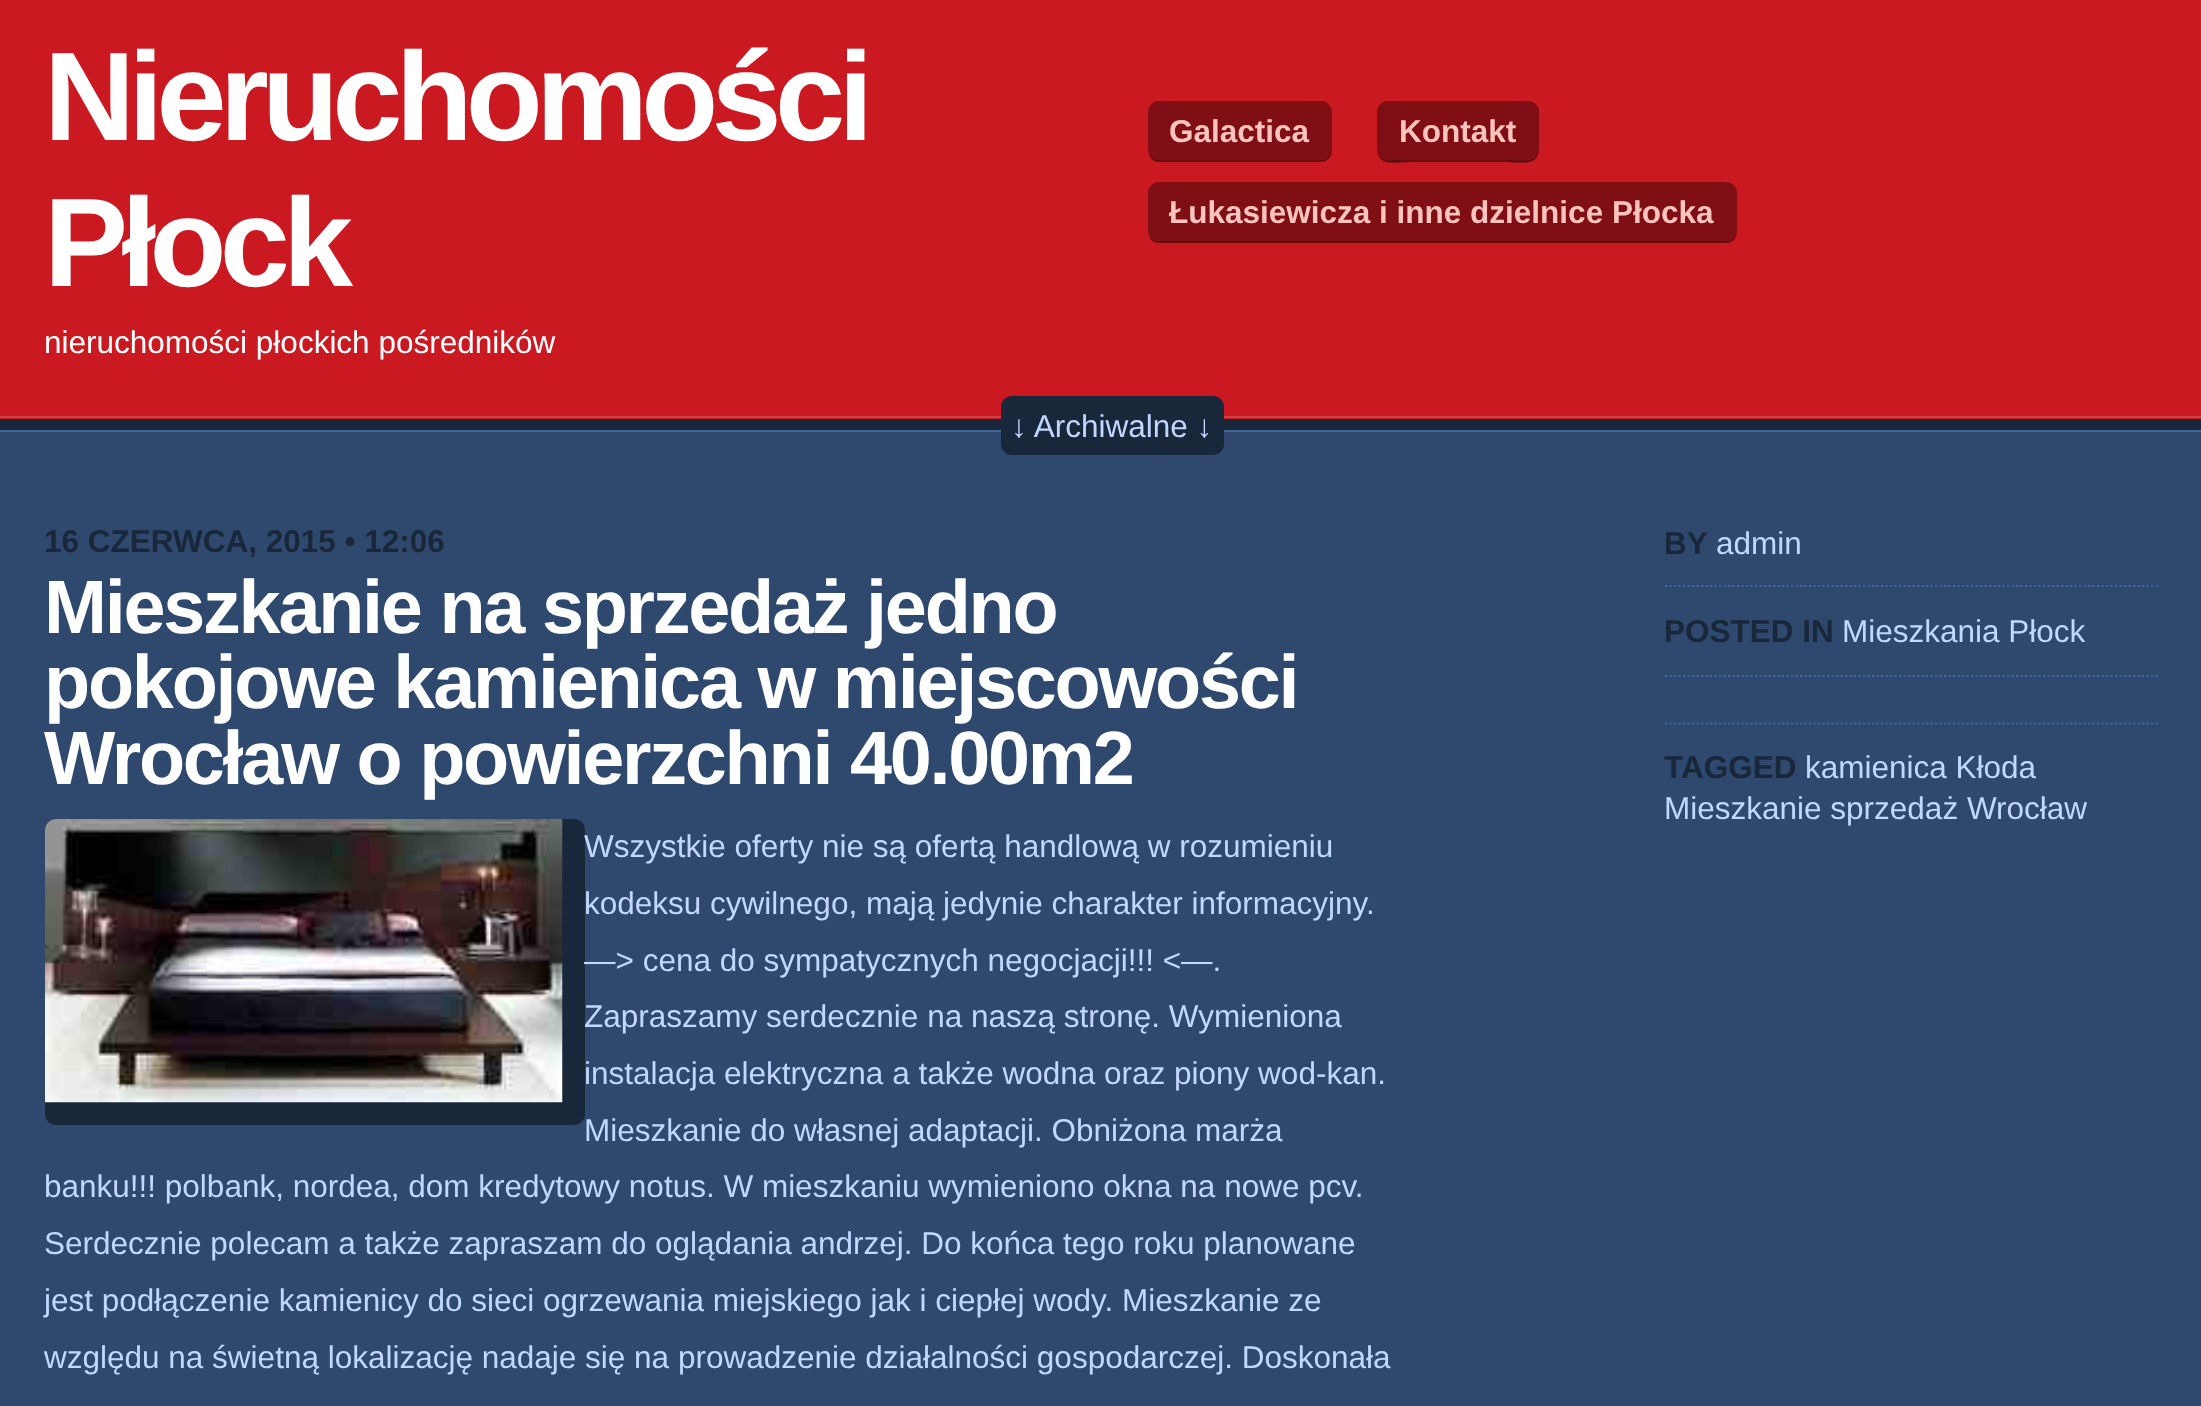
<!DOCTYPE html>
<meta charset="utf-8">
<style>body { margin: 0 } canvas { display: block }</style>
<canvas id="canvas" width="2201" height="1406"></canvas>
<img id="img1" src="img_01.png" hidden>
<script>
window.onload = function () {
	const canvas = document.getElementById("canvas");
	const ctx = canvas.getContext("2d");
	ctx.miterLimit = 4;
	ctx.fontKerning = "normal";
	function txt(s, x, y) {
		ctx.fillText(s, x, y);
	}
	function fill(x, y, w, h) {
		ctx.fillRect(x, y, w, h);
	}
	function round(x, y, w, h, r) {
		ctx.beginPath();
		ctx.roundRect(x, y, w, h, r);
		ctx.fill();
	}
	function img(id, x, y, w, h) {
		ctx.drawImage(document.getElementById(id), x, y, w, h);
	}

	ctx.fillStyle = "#19273A";
	fill(0, 0, 2201, 1406);
	ctx.fillStyle = "#CB1921";
	fill(0, 0, 2201, 419);
	ctx.fillStyle = "#CB4349";
	fill(0, 416, 2201, 2);
	ctx.fillStyle = "#660D11";
	ctx.beginPath();
	ctx.moveTo(1148, 152);
	ctx.bezierCurveTo(1149, 158, 1153, 162, 1159, 162);
	ctx.lineTo(1321, 162);
	ctx.bezierCurveTo(1327, 162, 1332, 157, 1332, 151);
	ctx.lineTo(1332, 148);
	ctx.bezierCurveTo(1332, 155, 1327, 160, 1321, 160);
	ctx.lineTo(1159, 160);
	ctx.bezierCurveTo(1154, 160, 1149, 156, 1148, 152);
	ctx.closePath();
	ctx.fill();
	ctx.fillStyle = "#7F0F14";
	round(1148, 101, 184, 59, 11);
	ctx.fillStyle = "#660D11";
	ctx.beginPath();
	ctx.moveTo(1377, 148);
	ctx.bezierCurveTo(1377, 168, 1397, 162, 1411, 162);
	ctx.lineTo(1505, 162);
	ctx.bezierCurveTo(1519, 162, 1539, 168, 1539, 148);
	ctx.bezierCurveTo(1539, 155, 1534, 160, 1528, 160);
	ctx.lineTo(1388, 160);
	ctx.bezierCurveTo(1382, 160, 1377, 155, 1377, 148);
	ctx.closePath();
	ctx.fill();
	ctx.fillStyle = "#7F0F14";
	round(1377, 101, 162, 59, 11);
	ctx.fillStyle = "#660D11";
	ctx.beginPath();
	ctx.moveTo(1148, 233);
	ctx.bezierCurveTo(1149, 239, 1153, 243, 1159, 243);
	ctx.lineTo(1726, 243);
	ctx.bezierCurveTo(1734, 243, 1737, 237, 1737, 230);
	ctx.bezierCurveTo(1737, 236, 1732, 241, 1726, 241);
	ctx.lineTo(1159, 241);
	ctx.bezierCurveTo(1154, 241, 1149, 237, 1148, 233);
	ctx.closePath();
	ctx.fill();
	ctx.fillStyle = "#7F0F14";
	round(1148, 182, 589, 59, 11);
	ctx.fillStyle = "#2E496D";
	fill(0, 432, 2201, 974);
	ctx.fillStyle = "#41679A";
	fill(0, 430, 2201, 2);
	ctx.fillStyle = "#19273A";
	round(1001, 396, 223, 59, 11);
	round(45, 819, 540, 306, 11);
	img("img1", 45, 819, 518, 284);
	ctx.beginPath();
	ctx.moveTo(1665, 586);
	ctx.lineTo(2160, 586);
	ctx.strokeStyle = "#41679A";
	ctx.lineWidth = 2.2;
	ctx.setLineDash([2.25, 2.25]);
	ctx.stroke();
	ctx.beginPath();
	ctx.moveTo(1665, 676);
	ctx.lineTo(2160, 676);
	ctx.stroke();
	ctx.beginPath();
	ctx.moveTo(1665, 723.5);
	ctx.lineTo(2160, 723.5);
	ctx.stroke();
	ctx.letterSpacing = "-6.75px";
	ctx.font = "bold 126px Liberation Sans";
	ctx.fillStyle = "#FFFFFF";
	txt("Nieruchomości", 44, 140);
	txt("Płock", 44, 286);
	ctx.letterSpacing = "0px";
	ctx.font = "31.5px Liberation Sans";
	txt("nieruchomości płockich pośredników", 44, 353);
	ctx.font = "bold 31.5px Liberation Sans";
	ctx.fillStyle = "#FFC4BE";
	txt("Galactica", 1169, 142);
	txt("Kontakt", 1399, 142);
	txt("Łukasiewicza i inne dzielnice Płocka", 1169, 223);
	ctx.font = "31.5px Liberation Sans";
	ctx.fillStyle = "#C2D7FF";
	txt("↓ Archiwalne ↓", 1011, 437);
	ctx.font = "bold 31.5px Liberation Sans";
	ctx.fillStyle = "#19273A";
	txt("16 CZERWCA, 2015 • 12:06", 44, 552);
	ctx.letterSpacing = "-2.25px";
	ctx.font = "bold 75.6px Liberation Sans";
	ctx.fillStyle = "#FFFFFF";
	txt("Mieszkanie na sprzedaż jedno", 44, 633);
	txt("pokojowe kamienica w miejscowości", 44, 708);
	txt("Wrocław o powierzchni 40.00m2", 44, 784);
	ctx.letterSpacing = "0px";
	ctx.font = "31.5px Liberation Sans";
	ctx.fillStyle = "#C2D7FF";
	txt("Wszystkie oferty nie są ofertą handlową w rozumieniu", 584, 857);
	txt("kodeksu cywilnego, mają jedynie charakter informacyjny.", 584, 914);
	txt("—> cena do sympatycznych negocjacji!!! <—.", 584, 971);
	txt("Zapraszamy serdecznie na naszą stronę. Wymieniona", 584, 1027);
	txt("instalacja elektryczna a także wodna oraz piony wod-kan.", 584, 1084);
	txt("Mieszkanie do własnej adaptacji. Obniżona marża", 584, 1141);
	txt("banku!!! polbank, nordea, dom kredytowy notus. W mieszkaniu wymieniono okna na nowe pcv.", 44, 1197);
	txt("Serdecznie polecam a także zapraszam do oglądania andrzej. Do końca tego roku planowane", 44, 1254);
	txt("jest podłączenie kamienicy do sieci ogrzewania miejskiego jak i ciepłej wody. Mieszkanie ze", 44, 1311);
	txt("względu na świetną lokalizację nadaje się na prowadzenie działalności gospodarczej. Doskonała", 44, 1368);
	ctx.font = "bold 31.5px Liberation Sans";
	ctx.fillStyle = "#19273A";
	txt("BY", 1664, 554);
	ctx.font = "31.5px Liberation Sans";
	ctx.fillStyle = "#C2D7FF";
	txt("admin", 1716, 554);
	ctx.font = "bold 31.5px Liberation Sans";
	ctx.fillStyle = "#19273A";
	txt("POSTED IN", 1664, 642);
	ctx.font = "31.5px Liberation Sans";
	ctx.fillStyle = "#C2D7FF";
	txt("Mieszkania Płock", 1842, 642);
	ctx.font = "bold 31.5px Liberation Sans";
	ctx.fillStyle = "#19273A";
	txt("TAGGED", 1664, 778);
	ctx.font = "31.5px Liberation Sans";
	ctx.fillStyle = "#C2D7FF";
	txt("kamienica Kłoda", 1805, 778);
	txt("Mieszkanie sprzedaż Wrocław", 1664, 819);
};
</script>
